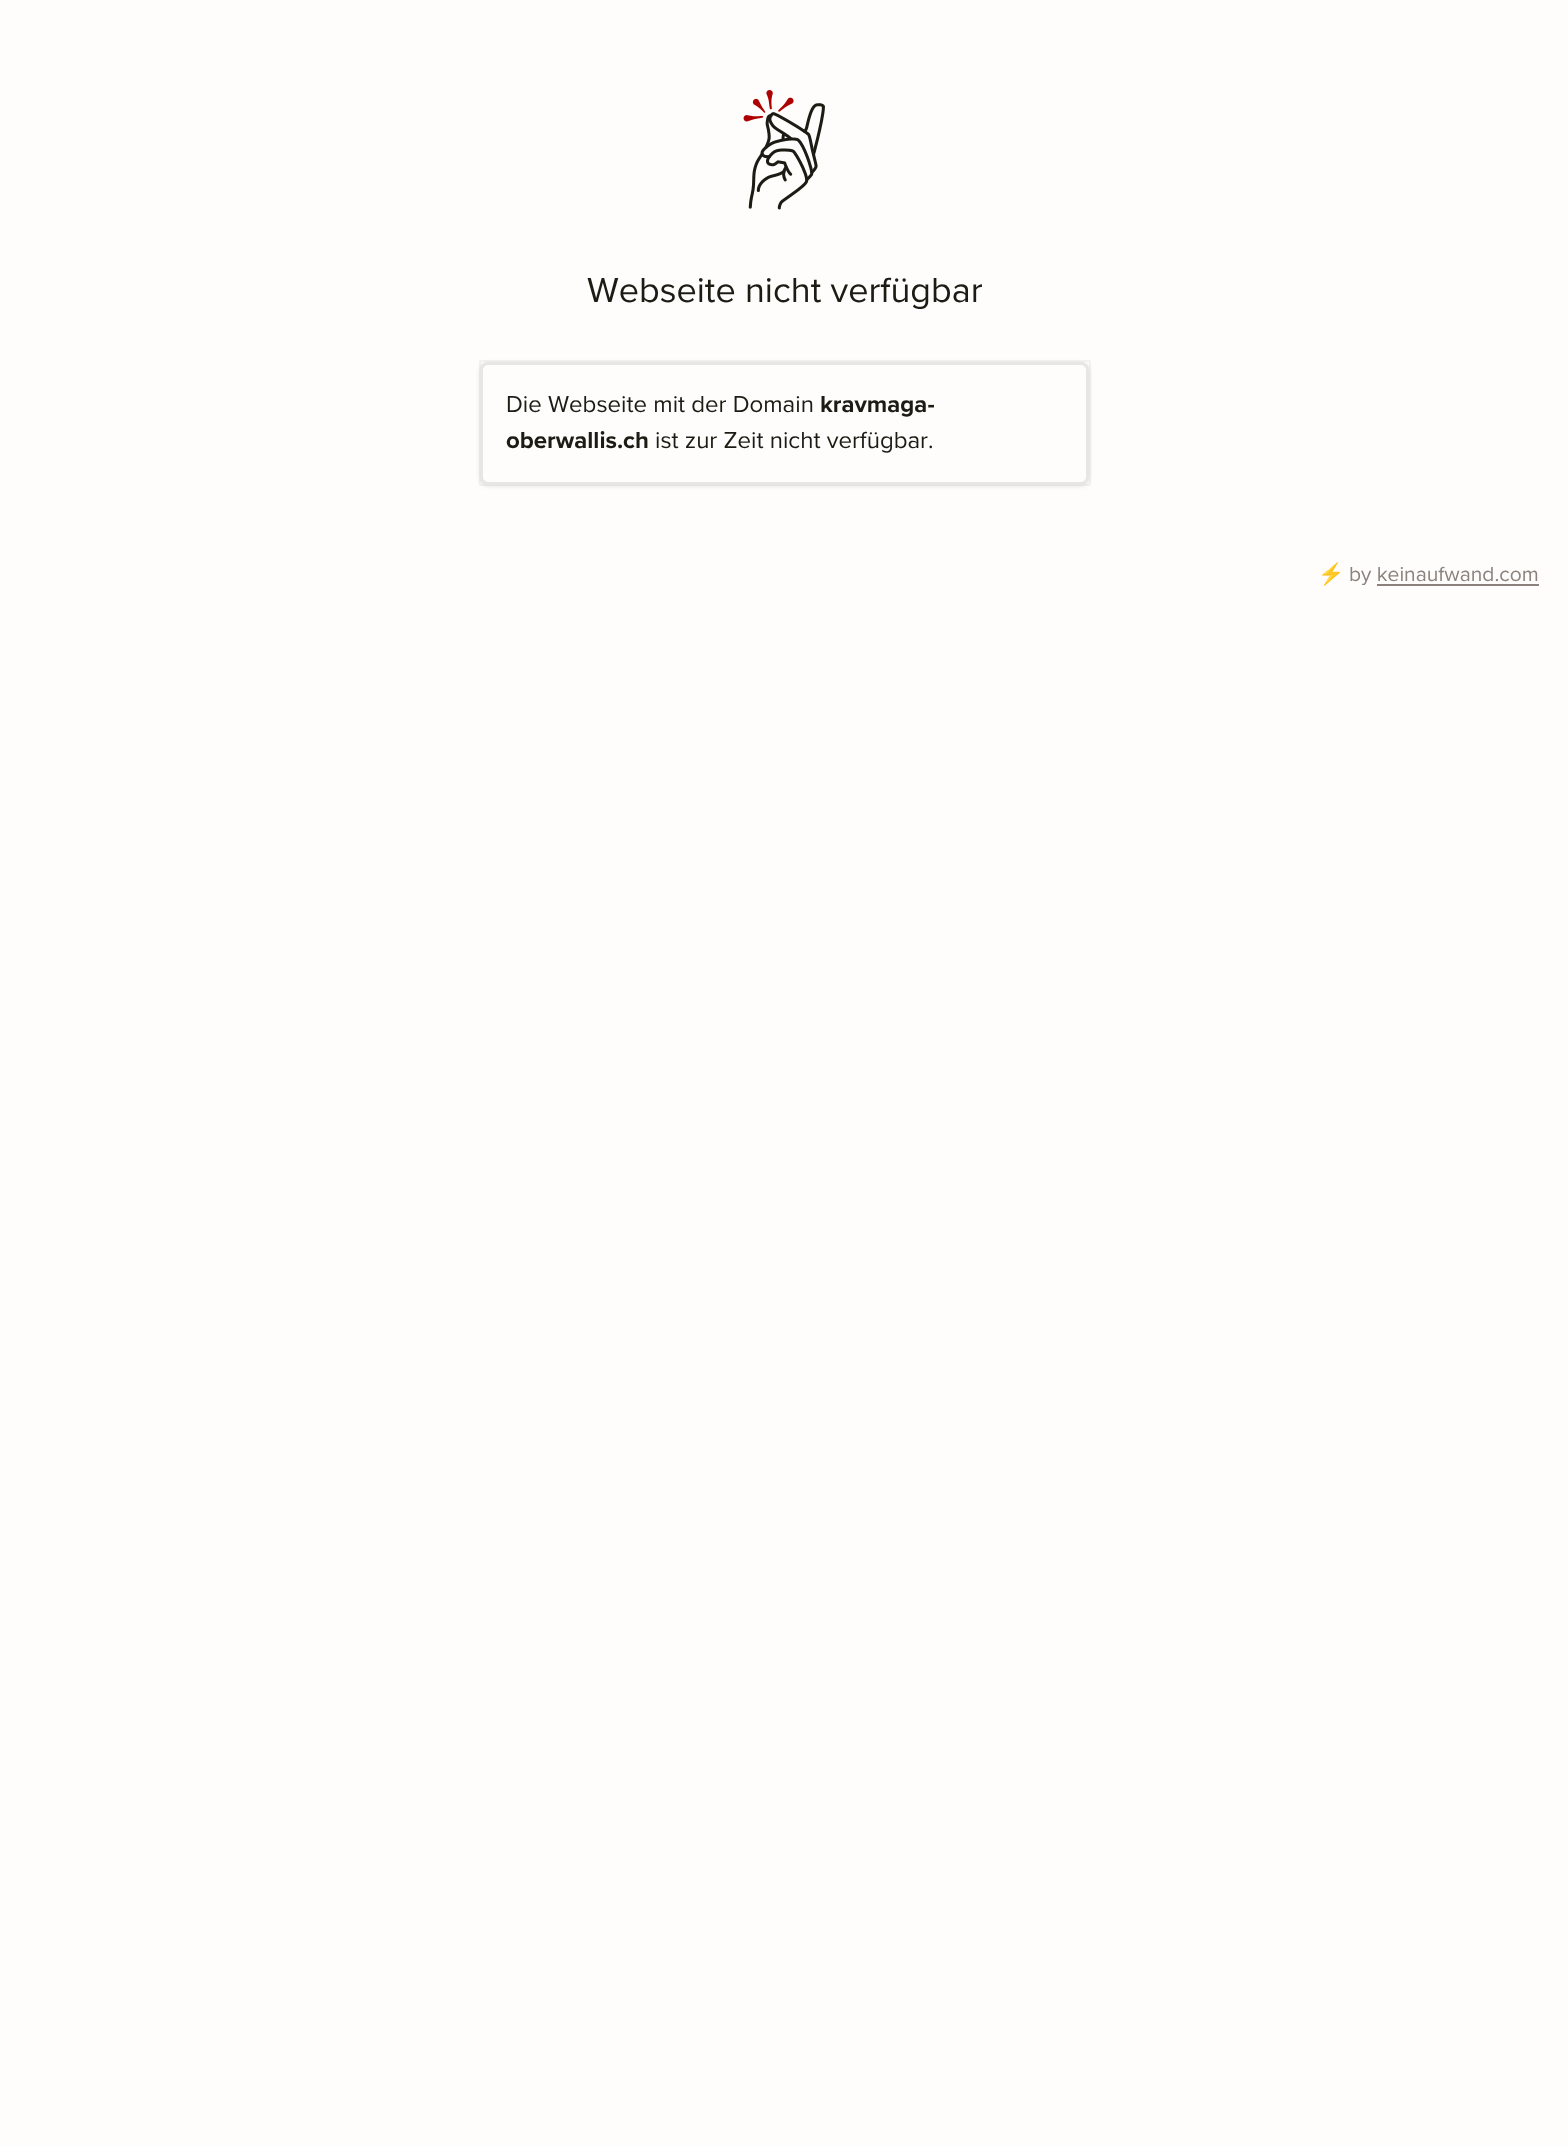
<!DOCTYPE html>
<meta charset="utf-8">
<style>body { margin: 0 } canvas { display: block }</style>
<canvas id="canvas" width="1568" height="2146"></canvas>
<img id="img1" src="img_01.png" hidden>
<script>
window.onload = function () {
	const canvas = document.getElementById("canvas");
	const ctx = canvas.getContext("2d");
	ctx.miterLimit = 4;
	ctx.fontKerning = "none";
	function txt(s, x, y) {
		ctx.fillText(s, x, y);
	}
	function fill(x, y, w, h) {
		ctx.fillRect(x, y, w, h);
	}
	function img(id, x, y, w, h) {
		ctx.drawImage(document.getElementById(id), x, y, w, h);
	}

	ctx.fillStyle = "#FEFDFB";
	fill(0, 0, 1568, 2146);
	img("img1", 743, 90, 82, 120);
	ctx.fillStyle = "rgba(63, 63, 68, 0.15)";
	ctx.filter = "blur(2px)";
	ctx.beginPath();
	ctx.roundRect(480, 363, 609, 123, 8);
	ctx.fill();
	ctx.filter = "none";
	ctx.strokeStyle = "rgba(63, 63, 68, 0.05)";
	ctx.lineWidth = 2;
	ctx.strokeRect(480, 361, 610, 124);
	ctx.fillStyle = "#FEFDFB";
	ctx.beginPath();
	ctx.roundRect(481.5, 363.5, 606, 120, 6.5);
	ctx.fill();
	ctx.strokeStyle = "#E6E6E6";
	ctx.lineWidth = 3;
	ctx.stroke();
	ctx.fillStyle = "#8B827D";
	fill(1377, 584, 162, 2);
	ctx.font = "36px Proxima Nova";
	ctx.fillStyle = "#1C1C15";
	txt("Webseite nicht verfügbar", 587, 302);
	ctx.font = "24px Proxima Nova";
	txt("Die Webseite mit der Domain", 506, 412);
	ctx.font = "bold 24px Proxima Nova";
	txt("kravmaga-", 820, 412);
	txt("oberwallis.ch", 506, 448);
	ctx.font = "24px Proxima Nova";
	txt("ist zur Zeit nicht verfügbar.", 655, 448);
	ctx.font = "21px Noto Color Emoji";
	ctx.fillStyle = "#8B827D";
	txt("⚡", 1318, 581);
	ctx.font = "21px Proxima Nova";
	txt("by keinaufwand.com", 1349, 581);
};
</script>
